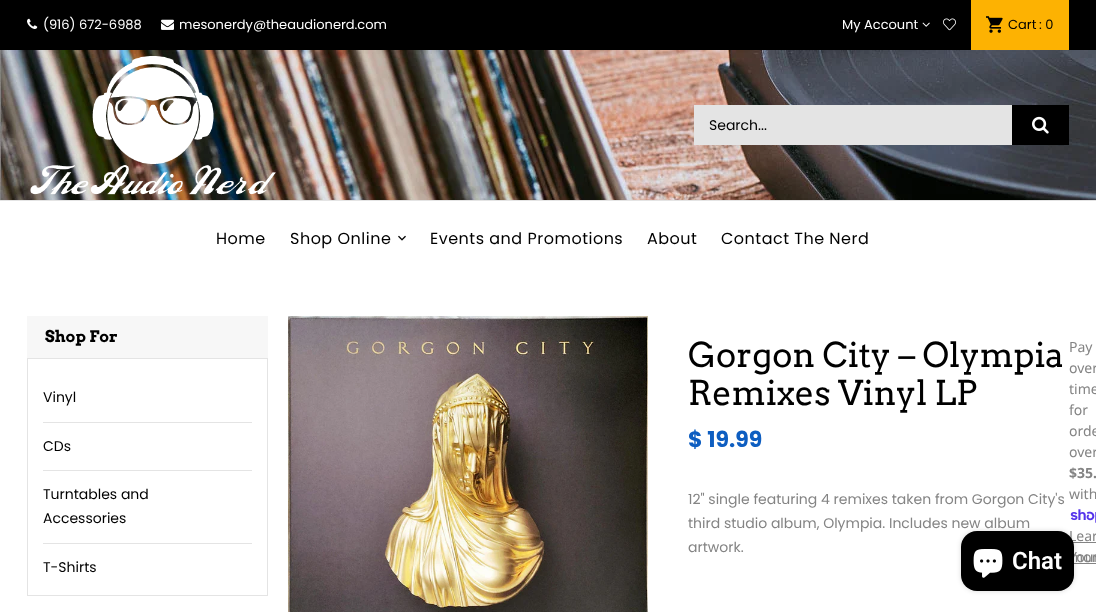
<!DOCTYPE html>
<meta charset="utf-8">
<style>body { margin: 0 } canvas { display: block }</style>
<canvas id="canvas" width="1096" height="612"></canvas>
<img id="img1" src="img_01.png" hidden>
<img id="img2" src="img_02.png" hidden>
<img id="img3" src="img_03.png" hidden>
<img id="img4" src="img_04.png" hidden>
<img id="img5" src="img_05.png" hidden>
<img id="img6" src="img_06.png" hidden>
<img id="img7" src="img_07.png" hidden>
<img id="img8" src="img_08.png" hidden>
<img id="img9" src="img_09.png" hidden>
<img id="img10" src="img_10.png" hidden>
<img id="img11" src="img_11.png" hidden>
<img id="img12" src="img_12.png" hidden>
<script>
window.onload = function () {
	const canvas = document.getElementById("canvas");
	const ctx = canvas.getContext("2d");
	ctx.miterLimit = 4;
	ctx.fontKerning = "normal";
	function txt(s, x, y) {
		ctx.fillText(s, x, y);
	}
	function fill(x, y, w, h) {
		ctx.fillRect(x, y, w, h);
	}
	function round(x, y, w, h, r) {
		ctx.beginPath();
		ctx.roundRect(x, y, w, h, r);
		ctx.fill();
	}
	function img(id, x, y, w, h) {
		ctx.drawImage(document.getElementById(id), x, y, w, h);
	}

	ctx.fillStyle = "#FFFFFF";
	fill(0, 0, 1096, 612);
	ctx.fillStyle = "#000000";
	fill(0, 0, 1096, 50);
	img("img1", 27, 18, 11, 11);
	img("img2", 161, 19, 13, 11);
	img("img3", 922, 22, 8, 5);
	img("img4", 943, 18, 13, 13);
	ctx.fillStyle = "#FDB202";
	fill(971, 0, 98, 50);
	img("img5", 986, 16, 17, 17);
	img("img6", 0, 50, 1096, 150);
	ctx.fillStyle = "#E4E4E4";
	fill(0, 200, 1096, 1);
	img("img7", 30, 56, 246, 139);
	fill(694, 105, 318, 40);
	ctx.fillStyle = "#000000";
	fill(1012, 105, 57, 40);
	img("img8", 1032, 116, 17, 18);
	img("img9", 398, 235, 8, 6);
	ctx.fillStyle = "#F7F7F7";
	fill(27, 316, 241, 42);
	ctx.strokeStyle = "#E4E4E4";
	ctx.strokeRect(27.5, 358.5, 240, 237);
	ctx.fillStyle = "#E4E4E4";
	fill(43, 422, 209, 1);
	fill(43, 470, 209, 1);
	fill(43, 543, 209, 1);
	img("img10", 288, 316, 360, 296);
	img("img11", 1070, 509, 26, 14);
	ctx.fillStyle = "#848484";
	fill(1069, 542, 27, 1);
	fill(1070, 563, 26, 1);
	ctx.fillStyle = "rgba(0, 0, 0, 0.15)";
	ctx.filter = "blur(2.5px)";
	ctx.beginPath();
	ctx.roundRect(961, 531, 113, 60, 16);
	ctx.fill();
	ctx.filter = "none";
	ctx.font = "13px Poppins";
	ctx.fillStyle = "#FFFFFF";
	txt("(916) 672-6988", 43, 29);
	txt("mesonerdy@theaudionerd.com", 179, 29);
	txt("My Account", 842, 29);
	ctx.fillStyle = "#000000";
	txt("Cart", 1008, 29);
	txt(": 0", 1039, 29);
	ctx.font = "14px Poppins";
	txt("Search...", 709, 130);
	ctx.letterSpacing = "0.5px";
	ctx.font = "16px Poppins";
	txt("Home", 216, 244);
	txt("Shop Online", 290, 244);
	txt("Events and Promotions", 430, 244);
	txt("About", 647, 244);
	txt("Contact The Nerd", 721, 244);
	ctx.letterSpacing = "0px";
	ctx.font = "bold 16px Arvo";
	txt("Shop For", 45, 342);
	ctx.font = "14px Poppins";
	txt("Vinyl", 43, 402);
	txt("CDs", 43, 451);
	txt("Turntables and", 43, 499);
	txt("Accessories", 43, 523);
	txt("T-Shirts", 43, 572);
	ctx.font = "34px Arvo";
	txt("Gorgon City – Olympia", 688, 367);
	txt("Remixes Vinyl LP", 688, 405);
	ctx.font = "14px Noto Sans";
	ctx.fillStyle = "#848484";
	txt("Pay", 1069, 352);
	txt("over", 1069, 373);
	txt("time", 1069, 394);
	txt("for", 1069, 415);
	txt("orde", 1069, 436);
	txt("over", 1069, 457);
	ctx.font = "bold 14px Noto Sans";
	txt("$35.", 1069, 478);
	ctx.font = "14px Noto Sans";
	txt("with", 1069, 499);
	txt("Lear", 1069, 541);
	txt("mor", 1070, 562);
	txt("Your", 1069, 562);
	ctx.font = "bold 22px Poppins";
	ctx.fillStyle = "#0E5EC1";
	txt("$ 19.99", 688, 447);
	ctx.font = "14px Poppins";
	ctx.fillStyle = "#848484";
	txt("12\" single featuring 4 remixes taken from Gorgon City's", 688, 504);
	txt("third studio album, Olympia. Includes new album", 688, 528);
	txt("artwork.", 688, 552);
	ctx.fillStyle = "#000000";
	round(961, 531, 113, 60, 16);
	img("img12", 973, 549, 30, 29);
	ctx.font = "600 24px Roboto";
	ctx.fillStyle = "#FFFFFF";
	txt("Chat", 1012, 569);
};
</script>
